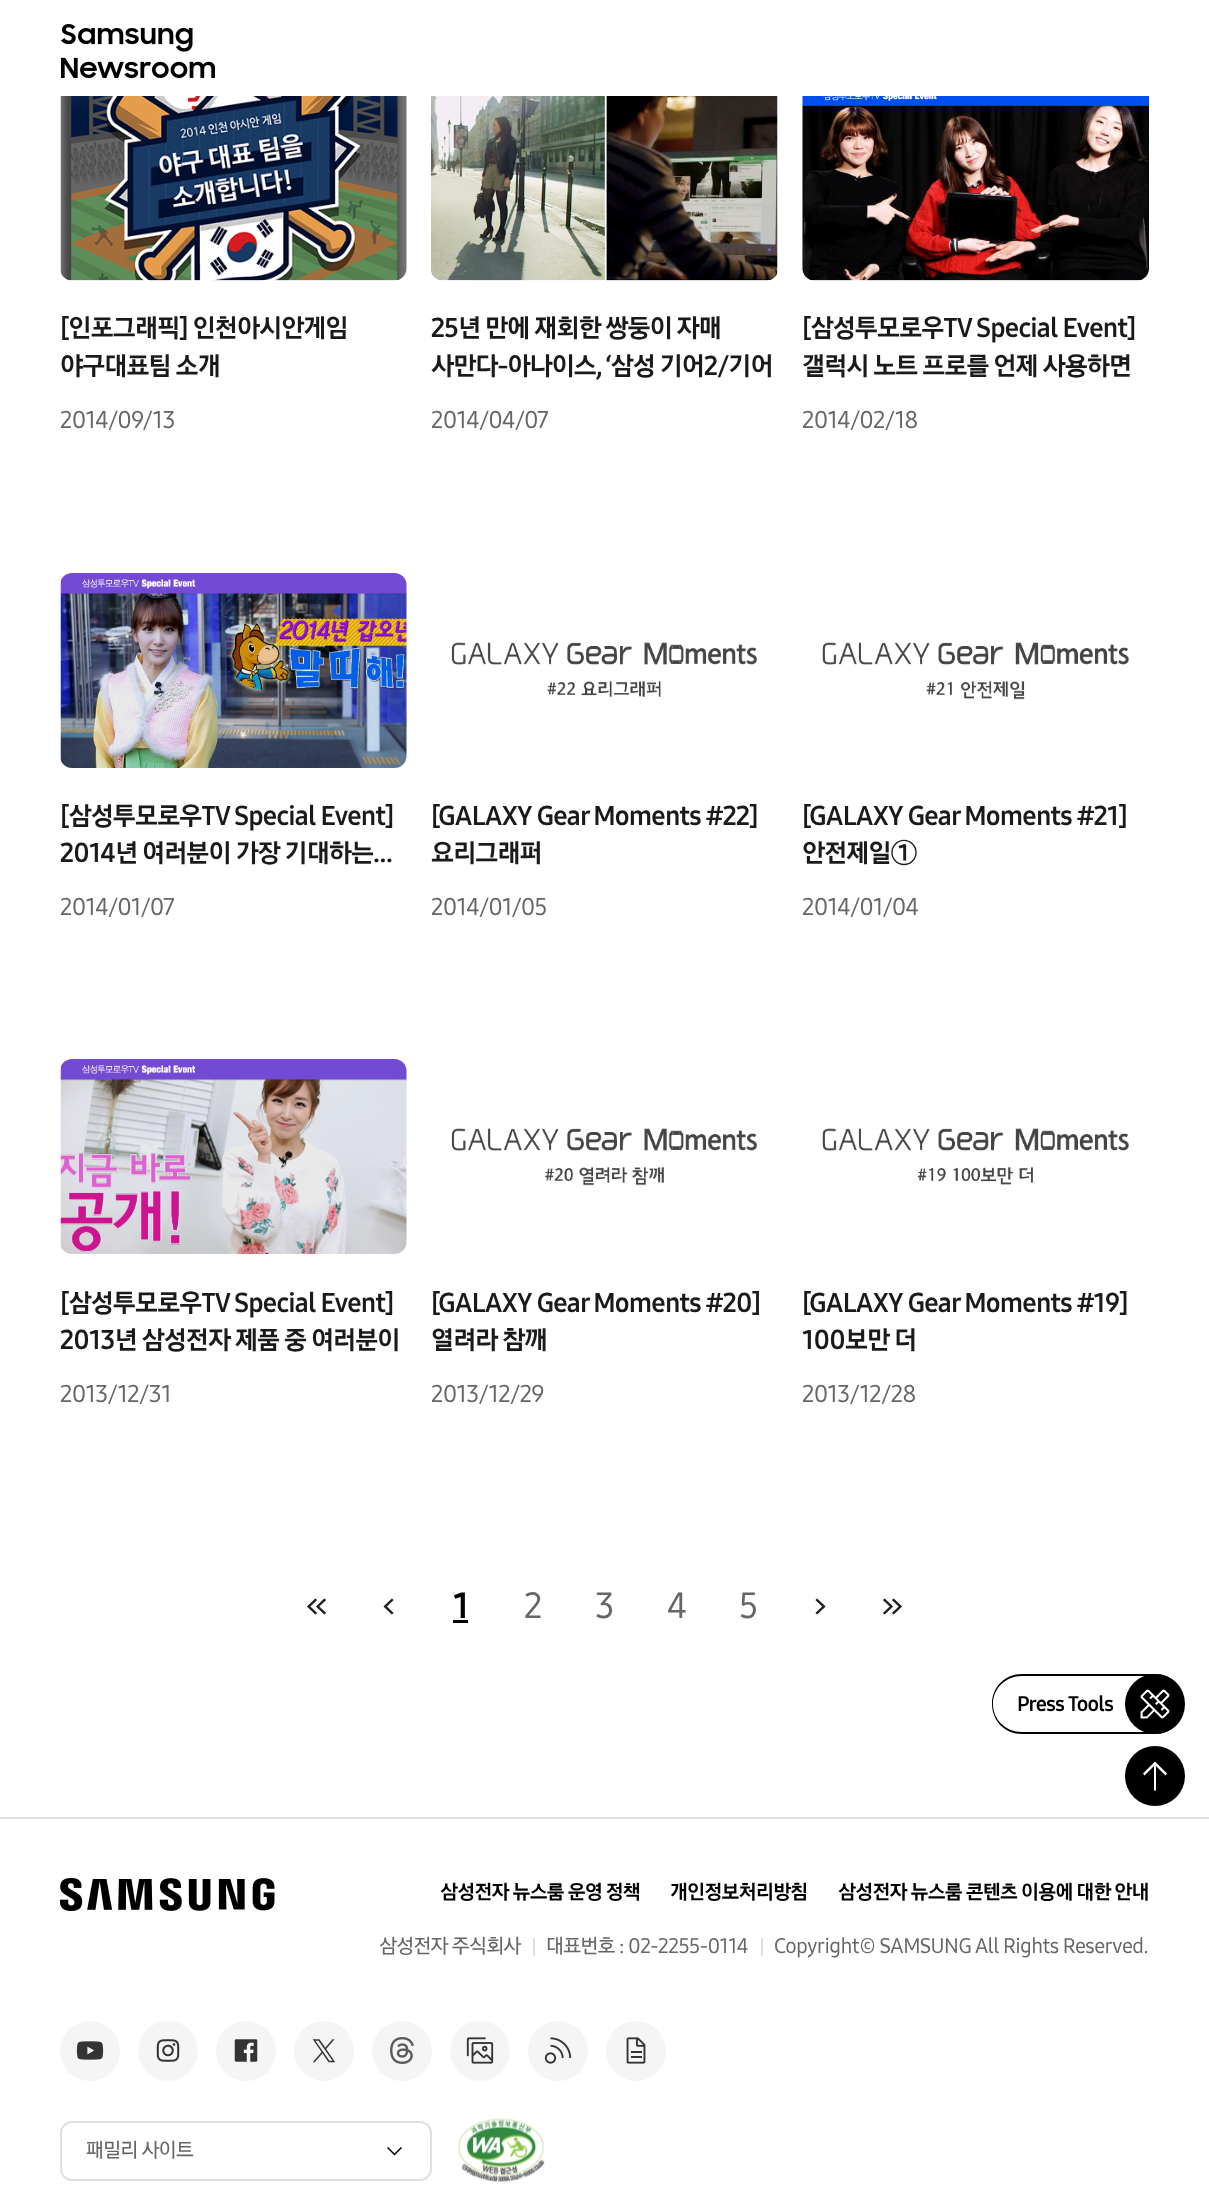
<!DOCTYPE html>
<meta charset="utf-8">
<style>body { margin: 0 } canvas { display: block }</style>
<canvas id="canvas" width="1209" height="2208"></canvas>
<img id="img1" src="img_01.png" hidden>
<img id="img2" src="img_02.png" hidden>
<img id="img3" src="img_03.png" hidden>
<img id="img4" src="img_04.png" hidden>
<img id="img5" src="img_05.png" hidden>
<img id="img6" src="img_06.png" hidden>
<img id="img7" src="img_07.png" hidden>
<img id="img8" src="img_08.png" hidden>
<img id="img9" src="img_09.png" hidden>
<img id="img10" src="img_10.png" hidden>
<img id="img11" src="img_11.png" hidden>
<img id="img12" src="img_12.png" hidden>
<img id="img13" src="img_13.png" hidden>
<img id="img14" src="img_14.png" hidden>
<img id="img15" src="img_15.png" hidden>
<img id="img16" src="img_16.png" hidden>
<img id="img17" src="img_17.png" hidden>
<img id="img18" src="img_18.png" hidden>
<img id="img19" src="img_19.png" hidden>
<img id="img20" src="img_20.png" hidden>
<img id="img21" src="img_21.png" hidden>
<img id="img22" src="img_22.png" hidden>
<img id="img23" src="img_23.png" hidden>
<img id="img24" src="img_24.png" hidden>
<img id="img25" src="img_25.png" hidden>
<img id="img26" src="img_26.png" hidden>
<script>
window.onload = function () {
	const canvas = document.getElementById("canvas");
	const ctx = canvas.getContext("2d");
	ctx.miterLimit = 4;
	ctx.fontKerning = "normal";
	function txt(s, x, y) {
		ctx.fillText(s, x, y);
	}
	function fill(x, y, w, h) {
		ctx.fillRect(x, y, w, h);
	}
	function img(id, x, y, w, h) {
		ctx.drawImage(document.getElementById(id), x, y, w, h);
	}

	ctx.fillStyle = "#FFFFFF";
	fill(0, 0, 1209, 2208);
	img("img1", 61, 24, 154, 54);
	img("img2", 60, 96, 347, 185);
	img("img3", 431, 96, 347, 185);
	img("img4", 802, 96, 347, 185);
	img("img5", 60, 573, 347, 195);
	img("img6", 451, 642, 307, 55);
	img("img7", 822, 642, 307, 58);
	img("img8", 60, 1059, 347, 195);
	img("img9", 451, 1128, 307, 58);
	img("img10", 822, 1128, 307, 57);
	img("img11", 307, 1598, 19, 17);
	img("img12", 383, 1598, 11, 17);
	ctx.fillStyle = "#000000";
	fill(453, 1620, 15, 3);
	img("img13", 815, 1598, 11, 17);
	img("img14", 883, 1598, 19, 17);
	ctx.beginPath();
	ctx.moveTo(1022, 1674);
	ctx.lineTo(1155, 1674);
	ctx.bezierCurveTo(1172, 1674, 1185, 1687, 1185, 1704);
	ctx.bezierCurveTo(1185, 1721, 1172, 1734, 1155, 1734);
	ctx.lineTo(1022, 1734);
	ctx.bezierCurveTo(1005, 1734, 992, 1721, 992, 1704);
	ctx.bezierCurveTo(992, 1687, 1005, 1674, 1022, 1674);
	ctx.closePath();
	ctx.moveTo(1022, 1676);
	ctx.lineTo(1155, 1676);
	ctx.bezierCurveTo(1172, 1676, 1185, 1688, 1185, 1704);
	ctx.bezierCurveTo(1185, 1720, 1172, 1732, 1155, 1732);
	ctx.lineTo(1022, 1732);
	ctx.bezierCurveTo(1006, 1732, 993, 1720, 993, 1704);
	ctx.bezierCurveTo(993, 1688, 1006, 1676, 1022, 1676);
	ctx.closePath();
	ctx.fill("evenodd");
	ctx.beginPath();
	ctx.arc(1155, 1704, 30, 0, Math.PI * 2);
	ctx.fill();
	img("img15", 1140, 1689, 30, 30);
	ctx.beginPath();
	ctx.arc(1155, 1776, 30, 0, Math.PI * 2);
	ctx.fill();
	ctx.fillStyle = "#FFFFFF";
	ctx.beginPath();
	ctx.moveTo(1155, 1761.5);
	ctx.lineTo(1143, 1773.5);
	ctx.lineTo(1144.5, 1775.5);
	ctx.lineTo(1154, 1766);
	ctx.lineTo(1154, 1790.5);
	ctx.lineTo(1156, 1790.5);
	ctx.lineTo(1156, 1766);
	ctx.lineTo(1165.5, 1775.5);
	ctx.lineTo(1167, 1773.5);
	ctx.closePath();
	ctx.fill();
	ctx.fillStyle = "#E0E0E0";
	fill(0, 1817, 1209, 2);
	img("img16", 60, 1878, 215, 33);
	fill(533, 1938, 2, 18);
	fill(761, 1938, 2, 18);
	ctx.fillStyle = "#F5F5F5";
	ctx.beginPath();
	ctx.arc(90, 2051, 30, 0, Math.PI * 2);
	ctx.fill();
	img("img17", 76, 2041, 28, 19);
	ctx.beginPath();
	ctx.arc(168, 2051, 30, 0, Math.PI * 2);
	ctx.fill();
	img("img18", 156, 2039, 24, 23);
	ctx.beginPath();
	ctx.arc(246, 2051, 30, 0, Math.PI * 2);
	ctx.fill();
	img("img19", 234, 2039, 24, 23);
	ctx.beginPath();
	ctx.arc(324, 2051, 30, 0, Math.PI * 2);
	ctx.fill();
	img("img20", 312, 2039, 24, 24);
	ctx.beginPath();
	ctx.arc(402, 2051, 30, 0, Math.PI * 2);
	ctx.fill();
	img("img21", 390, 2037, 24, 27);
	ctx.beginPath();
	ctx.arc(480, 2051, 30, 0, Math.PI * 2);
	ctx.fill();
	img("img22", 466, 2037, 28, 27);
	ctx.beginPath();
	ctx.arc(558, 2051, 30, 0, Math.PI * 2);
	ctx.fill();
	img("img23", 544, 2037, 28, 27);
	ctx.beginPath();
	ctx.arc(636, 2051, 30, 0, Math.PI * 2);
	ctx.fill();
	img("img24", 626, 2037, 20, 27);
	ctx.beginPath();
	ctx.roundRect(61, 2122, 370, 58, 11);
	ctx.strokeStyle = "#E0E0E0";
	ctx.lineWidth = 2;
	ctx.stroke();
	img("img25", 387, 2147, 15, 9);
	img("img26", 458, 2118, 87, 64);
	ctx.letterSpacing = "-0.8px";
	ctx.font = "bold 27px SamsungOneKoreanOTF";
	ctx.fillStyle = "#1A1A1A";
	txt("[인포그래픽] 인천아시안게임", 60, 337);
	txt("야구대표팀 소개", 60, 375);
	ctx.letterSpacing = "-0.75px";
	ctx.font = "500 24px SamsungOneKoreanOTF";
	ctx.fillStyle = "#666666";
	txt("2014/09/13", 60, 428);
	ctx.letterSpacing = "-0.8px";
	ctx.font = "bold 27px SamsungOneKoreanOTF";
	ctx.fillStyle = "#1A1A1A";
	txt("25년 만에 재회한 쌍둥이 자매", 431, 337);
	txt("사만다-아나이스, ‘삼성 기어2/기어", 431, 375);
	ctx.letterSpacing = "-0.75px";
	ctx.font = "500 24px SamsungOneKoreanOTF";
	ctx.fillStyle = "#666666";
	txt("2014/04/07", 431, 428);
	ctx.letterSpacing = "-0.8px";
	ctx.font = "bold 27px SamsungOneKoreanOTF";
	ctx.fillStyle = "#1A1A1A";
	txt("[삼성투모로우TV Special Event]", 802, 337);
	txt("갤럭시 노트 프로를 언제 사용하면", 802, 375);
	ctx.letterSpacing = "-0.75px";
	ctx.font = "500 24px SamsungOneKoreanOTF";
	ctx.fillStyle = "#666666";
	txt("2014/02/18", 802, 428);
	ctx.letterSpacing = "-0.8px";
	ctx.font = "bold 27px SamsungOneKoreanOTF";
	ctx.fillStyle = "#1A1A1A";
	txt("[삼성투모로우TV Special Event]", 60, 825);
	txt("2014년 여러분이 가장 기대하는…", 60, 862);
	ctx.letterSpacing = "-0.75px";
	ctx.font = "500 24px SamsungOneKoreanOTF";
	ctx.fillStyle = "#666666";
	txt("2014/01/07", 60, 915);
	ctx.letterSpacing = "-0.8px";
	ctx.font = "bold 27px SamsungOneKoreanOTF";
	ctx.fillStyle = "#1A1A1A";
	txt("[GALAXY Gear Moments #22]", 431, 825);
	txt("요리그래퍼", 431, 862);
	ctx.letterSpacing = "-0.75px";
	ctx.font = "500 24px SamsungOneKoreanOTF";
	ctx.fillStyle = "#666666";
	txt("2014/01/05", 431, 915);
	ctx.letterSpacing = "-0.8px";
	ctx.font = "bold 27px SamsungOneKoreanOTF";
	ctx.fillStyle = "#1A1A1A";
	txt("[GALAXY Gear Moments #21]", 802, 825);
	txt("안전제일①", 802, 862);
	ctx.letterSpacing = "-0.75px";
	ctx.font = "500 24px SamsungOneKoreanOTF";
	ctx.fillStyle = "#666666";
	txt("2014/01/04", 802, 915);
	ctx.letterSpacing = "-0.8px";
	ctx.font = "bold 27px SamsungOneKoreanOTF";
	ctx.fillStyle = "#1A1A1A";
	txt("[삼성투모로우TV Special Event]", 60, 1312);
	txt("2013년 삼성전자 제품 중 여러분이", 60, 1349);
	ctx.letterSpacing = "-0.75px";
	ctx.font = "500 24px SamsungOneKoreanOTF";
	ctx.fillStyle = "#666666";
	txt("2013/12/31", 60, 1402);
	ctx.letterSpacing = "-0.8px";
	ctx.font = "bold 27px SamsungOneKoreanOTF";
	ctx.fillStyle = "#1A1A1A";
	txt("[GALAXY Gear Moments #20]", 431, 1312);
	txt("열려라 참깨", 431, 1349);
	ctx.letterSpacing = "-0.75px";
	ctx.font = "500 24px SamsungOneKoreanOTF";
	ctx.fillStyle = "#666666";
	txt("2013/12/29", 431, 1402);
	ctx.letterSpacing = "-0.8px";
	ctx.font = "bold 27px SamsungOneKoreanOTF";
	ctx.fillStyle = "#1A1A1A";
	txt("[GALAXY Gear Moments #19]", 802, 1312);
	txt("100보만 더", 802, 1349);
	ctx.letterSpacing = "-0.75px";
	ctx.font = "500 24px SamsungOneKoreanOTF";
	ctx.fillStyle = "#666666";
	txt("2013/12/28", 802, 1402);
	ctx.letterSpacing = "-1px";
	ctx.font = "bold 36px SamsungOneKoreanOTF";
	ctx.fillStyle = "#000000";
	txt("1", 453, 1618);
	ctx.font = "500 36px SamsungOneKoreanOTF";
	ctx.fillStyle = "#666666";
	txt("2", 524, 1618);
	txt("3", 595, 1618);
	txt("4", 667, 1618);
	txt("5", 739, 1618);
	ctx.letterSpacing = "-0.65px";
	ctx.font = "bold 21px SamsungOneKoreanOTF";
	ctx.fillStyle = "#000000";
	txt("Press Tools", 1017, 1711);
	txt("삼성전자 뉴스룸 운영 정책", 440, 1899);
	txt("개인정보처리방침", 670, 1899);
	txt("삼성전자 뉴스룸 콘텐츠 이용에 대한 안내", 838, 1899);
	ctx.font = "500 21px SamsungOneKoreanOTF";
	ctx.fillStyle = "#666666";
	txt("삼성전자 주식회사", 379, 1953);
	txt("대표번호 : 02-2255-0114", 546, 1953);
	txt("Copyright© SAMSUNG All Rights Reserved.", 774, 1953);
	txt("패밀리 사이트", 86, 2157);
};
</script>
